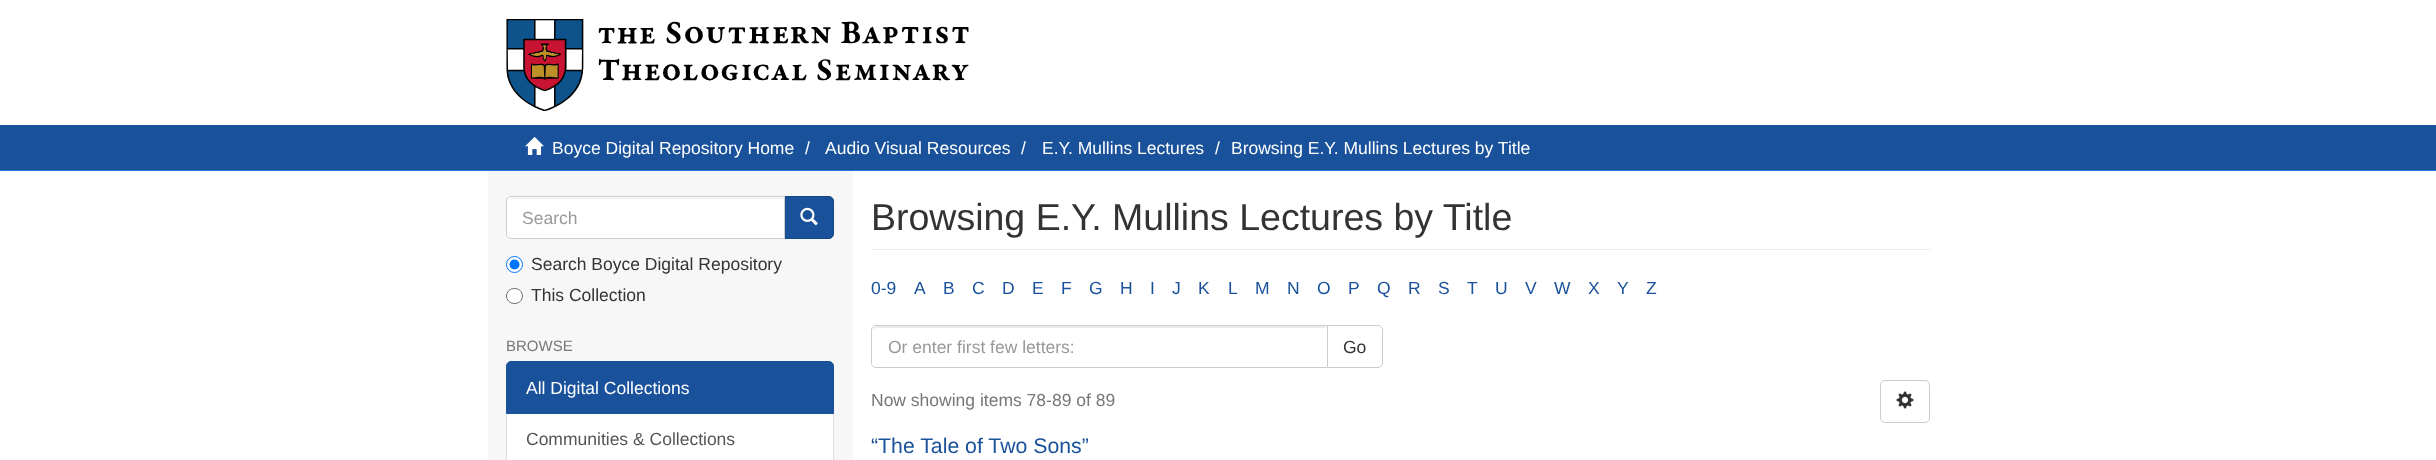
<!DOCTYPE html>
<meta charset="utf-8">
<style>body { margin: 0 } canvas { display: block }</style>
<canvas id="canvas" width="2436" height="460"></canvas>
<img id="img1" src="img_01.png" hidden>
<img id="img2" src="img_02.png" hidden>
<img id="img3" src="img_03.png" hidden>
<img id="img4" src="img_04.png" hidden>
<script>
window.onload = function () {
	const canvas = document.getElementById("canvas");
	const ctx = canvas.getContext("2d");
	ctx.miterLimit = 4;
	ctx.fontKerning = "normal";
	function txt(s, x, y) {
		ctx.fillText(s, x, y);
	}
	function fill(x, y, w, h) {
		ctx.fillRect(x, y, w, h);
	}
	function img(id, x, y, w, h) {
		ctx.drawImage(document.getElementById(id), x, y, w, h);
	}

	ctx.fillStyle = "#FFFFFF";
	fill(0, 0, 2436, 460);
	img("img1", 506, 19, 463, 92);
	ctx.fillStyle = "#19519B";
	fill(0, 125, 2436, 45);
	ctx.fillStyle = "#2574DC";
	fill(0, 170, 2436, 1);
	img("img2", 525, 136, 19, 19);
	ctx.fillStyle = "#F7F7F7";
	fill(488, 171, 365, 289);
	ctx.fillStyle = "#19519B";
	ctx.beginPath();
	ctx.roundRect(784.5, 196.5, 49, 42, [0, 4.5, 4.5, 0]);
	ctx.fill();
	ctx.strokeStyle = "#154685";
	ctx.stroke();
	ctx.fillStyle = "#FFFFFF";
	ctx.beginPath();
	ctx.roundRect(506, 196, 279, 43, [5, 0, 0, 5]);
	ctx.fill();
	ctx.fillStyle = "#ECECEC";
	ctx.beginPath();
	ctx.moveTo(511, 199);
	ctx.lineTo(784, 199);
	ctx.lineTo(784, 198);
	ctx.lineTo(512, 198);
	ctx.lineTo(510, 199);
	ctx.lineTo(509, 200);
	ctx.closePath();
	ctx.fill();
	ctx.beginPath();
	ctx.roundRect(506.5, 196.5, 278, 42, [4.5, 0, 0, 4.5]);
	ctx.strokeStyle = "#CCCCCC";
	ctx.stroke();
	img("img3", 800, 207, 18, 19);
	ctx.fillStyle = "#FFFFFF";
	ctx.beginPath();
	ctx.arc(514.5, 264.5, 8, 0, Math.PI * 2);
	ctx.fill();
	ctx.strokeStyle = "#0075FF";
	ctx.stroke();
	ctx.fillStyle = "#0075FF";
	ctx.beginPath();
	ctx.arc(514.5, 264.5, 5, 0, Math.PI * 2);
	ctx.fill();
	ctx.fillStyle = "#FFFFFF";
	ctx.beginPath();
	ctx.roundRect(506.5, 288.5, 16, 15, 7.5);
	ctx.fill();
	ctx.strokeStyle = "#767676";
	ctx.stroke();
	ctx.beginPath();
	ctx.rect(506.5, 413.5, 327, 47);
	ctx.fill();
	ctx.strokeStyle = "#DDDDDD";
	ctx.stroke();
	ctx.fillStyle = "#19519B";
	ctx.beginPath();
	ctx.roundRect(506.5, 361.5, 327, 52, [4.5, 4.5, 0, 0]);
	ctx.fill();
	ctx.strokeStyle = "#19519B";
	ctx.stroke();
	ctx.fillStyle = "#EEEEEE";
	fill(871, 249, 1060, 1);
	ctx.beginPath();
	ctx.roundRect(1326.5, 325.5, 56, 42, [0, 4.5, 4.5, 0]);
	ctx.strokeStyle = "#CCCCCC";
	ctx.stroke();
	ctx.fillStyle = "#FFFFFF";
	ctx.beginPath();
	ctx.roundRect(871, 325, 457, 43, [5, 0, 0, 5]);
	ctx.fill();
	ctx.fillStyle = "#ECECEC";
	ctx.beginPath();
	ctx.moveTo(876, 328);
	ctx.lineTo(1326, 328);
	ctx.lineTo(1326, 326);
	ctx.lineTo(877, 326);
	ctx.bezierCurveTo(875, 326, 874, 327, 873, 329);
	ctx.closePath();
	ctx.fill();
	ctx.beginPath();
	ctx.roundRect(871.5, 325.5, 456, 42, [4.5, 0, 0, 4.5]);
	ctx.stroke();
	ctx.beginPath();
	ctx.roundRect(1880.5, 380.5, 49, 42, 4.5);
	ctx.stroke();
	img("img4", 1896, 391, 18, 18);
	ctx.font = "17.5px Liberation Sans";
	ctx.fillStyle = "#FFFFFF";
	txt("Boyce Digital Repository Home", 552, 154);
	txt("/", 805, 154);
	txt("Audio Visual Resources", 825, 154);
	txt("/", 1021, 154);
	txt("E.Y. Mullins Lectures", 1042, 154);
	txt("/", 1215, 154);
	txt("Browsing E.Y. Mullins Lectures by Title", 1231, 154);
	ctx.fillStyle = "#999999";
	txt("Search", 522, 224);
	ctx.fillStyle = "#333333";
	txt("Search Boyce Digital Repository", 531, 270);
	txt("This Collection", 531, 301);
	ctx.font = "15px Liberation Sans";
	ctx.fillStyle = "#777777";
	txt("BROWSE", 506, 351);
	ctx.font = "17.5px Liberation Sans";
	ctx.fillStyle = "#FFFFFF";
	txt("All Digital Collections", 526, 394);
	ctx.fillStyle = "#555555";
	txt("Communities & Collections", 526, 445);
	ctx.font = "37.5px Liberation Sans";
	ctx.fillStyle = "#333333";
	txt("Browsing E.Y. Mullins Lectures by Title", 871, 230);
	ctx.font = "17.5px Liberation Sans";
	ctx.fillStyle = "#19519B";
	txt("0-9", 871, 294);
	txt("A", 914, 294);
	txt("B", 943, 294);
	txt("C", 972, 294);
	txt("D", 1002, 294);
	txt("E", 1032, 294);
	txt("F", 1061, 294);
	txt("G", 1089, 294);
	txt("H", 1120, 294);
	txt("I", 1150, 294);
	txt("J", 1172, 294);
	txt("K", 1198, 294);
	txt("L", 1228, 294);
	txt("M", 1255, 294);
	txt("N", 1287, 294);
	txt("O", 1317, 294);
	txt("P", 1348, 294);
	txt("Q", 1377, 294);
	txt("R", 1408, 294);
	txt("S", 1438, 294);
	txt("T", 1467, 294);
	txt("U", 1495, 294);
	txt("V", 1525, 294);
	txt("W", 1554, 294);
	txt("X", 1588, 294);
	txt("Y", 1617, 294);
	txt("Z", 1646, 294);
	ctx.fillStyle = "#999999";
	txt("Or enter first few letters:", 888, 353);
	ctx.fillStyle = "#333333";
	txt("Go", 1343, 353);
	ctx.fillStyle = "#777777";
	txt("Now showing items 78-89 of 89", 871, 406);
	ctx.font = "21.25px Liberation Sans";
	ctx.fillStyle = "#19519B";
	txt("“The Tale of Two Sons”", 871, 453);
};
</script>
